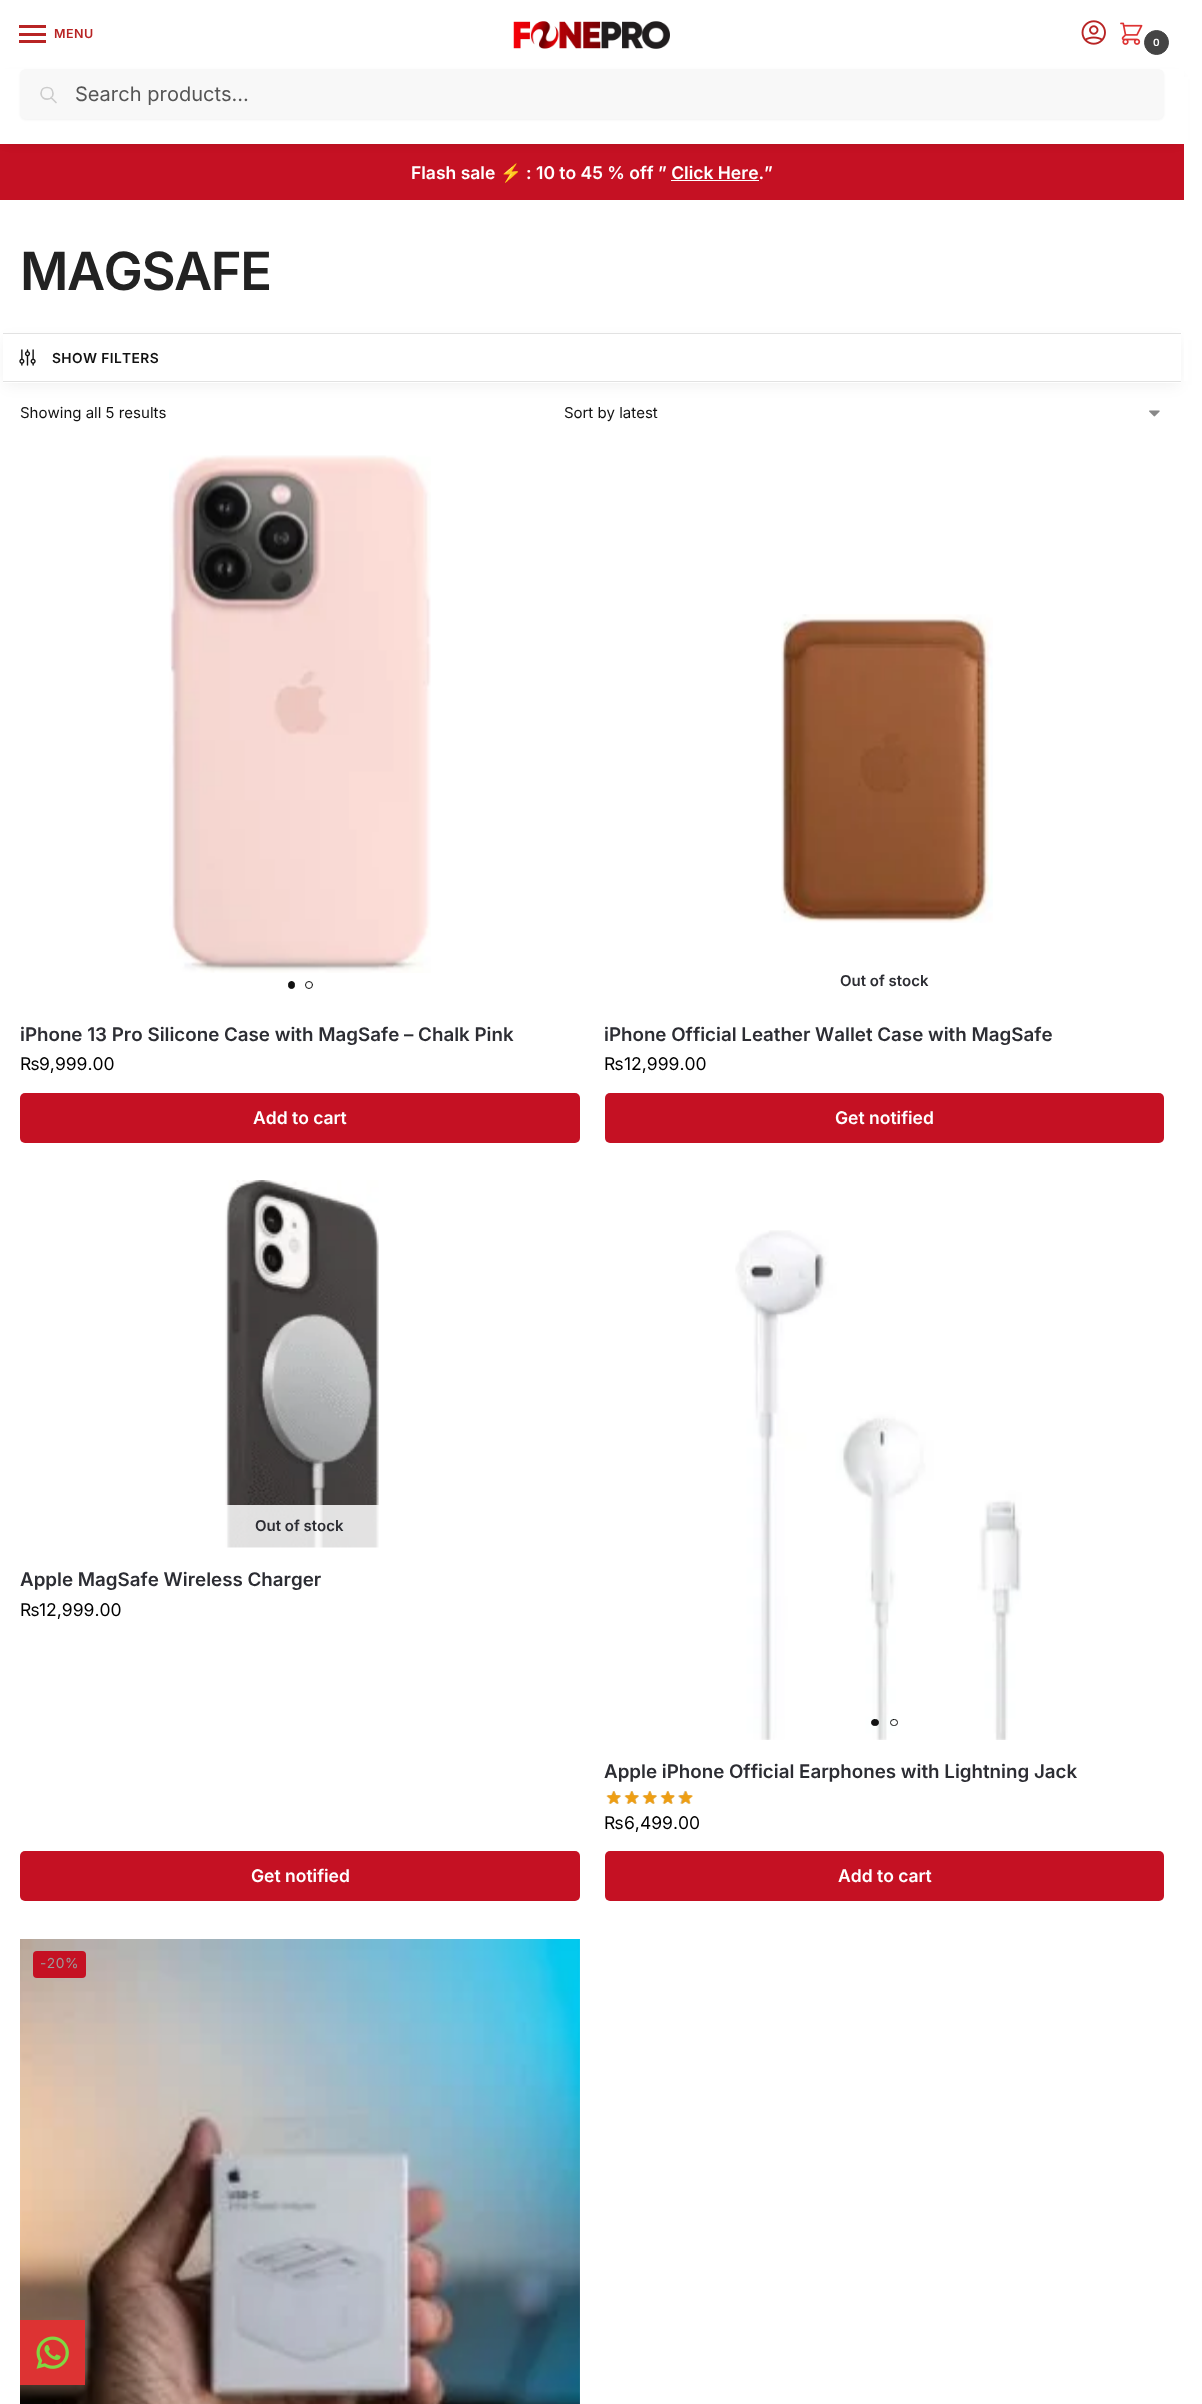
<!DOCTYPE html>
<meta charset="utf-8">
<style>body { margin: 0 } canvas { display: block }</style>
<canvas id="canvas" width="1202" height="2404"></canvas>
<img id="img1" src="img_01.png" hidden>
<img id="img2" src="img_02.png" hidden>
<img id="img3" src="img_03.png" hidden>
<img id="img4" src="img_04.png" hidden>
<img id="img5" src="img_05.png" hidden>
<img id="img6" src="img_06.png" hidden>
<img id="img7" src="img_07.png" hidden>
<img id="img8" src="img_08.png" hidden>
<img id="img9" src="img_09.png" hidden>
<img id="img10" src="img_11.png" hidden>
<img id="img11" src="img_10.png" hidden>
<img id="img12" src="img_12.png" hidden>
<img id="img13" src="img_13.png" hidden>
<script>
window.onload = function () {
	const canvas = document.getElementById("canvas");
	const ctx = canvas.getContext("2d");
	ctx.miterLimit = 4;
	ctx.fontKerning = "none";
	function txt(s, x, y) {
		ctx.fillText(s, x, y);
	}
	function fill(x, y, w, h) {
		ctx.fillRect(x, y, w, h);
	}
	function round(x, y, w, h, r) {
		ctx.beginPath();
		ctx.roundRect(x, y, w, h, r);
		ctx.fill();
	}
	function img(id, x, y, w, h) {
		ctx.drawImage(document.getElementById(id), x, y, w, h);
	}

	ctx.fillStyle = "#FFFFFF";
	fill(0, 0, 1202, 2404);
	ctx.fillStyle = "#B82424";
	fill(19, 25, 27, 3);
	fill(19, 33, 27, 3);
	fill(19, 40, 27, 3);
	img("img1", 513, 21, 157, 28);
	img("img2", 1081, 20, 25, 25);
	img("img3", 1120, 22, 23, 23);
	ctx.fillStyle = "#444444";
	ctx.beginPath();
	ctx.arc(1156.5, 42.5, 12, 0, Math.PI * 2);
	ctx.fill();
	ctx.strokeStyle = "#444444";
	ctx.stroke();
	ctx.fillStyle = "#C51123";
	fill(0, 144, 1184, 56);
	ctx.fillStyle = "rgba(0, 0, 0, 0.18)";
	ctx.filter = "blur(6px)";
	ctx.beginPath();
	ctx.rect(6, 79, 1172, 62);
	ctx.fill();
	ctx.filter = "none";
	ctx.fillStyle = "#FFFFFF";
	fill(0, 69, 1184, 75);
	ctx.fillStyle = "rgba(0, 0, 0, 0.05)";
	ctx.filter = "blur(1px)";
	ctx.beginPath();
	ctx.roundRect(20, 70, 1144, 50, 6);
	ctx.fill();
	ctx.filter = "none";
	ctx.fillStyle = "#F8F8F8";
	round(20, 69, 1144, 50, 6);
	ctx.beginPath();
	ctx.moveTo(56, 102.5);
	ctx.lineTo(51, 97.5);
	ctx.moveTo(53, 93.5);
	ctx.bezierCurveTo(53, 101, 41.5, 101, 41, 93.5);
	ctx.bezierCurveTo(41, 85.5, 53, 85.5, 53, 93.5);
	ctx.closePath();
	ctx.strokeStyle = "#CCCCCC";
	ctx.lineWidth = 1.7;
	ctx.lineCap = "round";
	ctx.lineJoin = "round";
	ctx.stroke();
	ctx.fillStyle = "#FFFFFF";
	fill(671, 180, 88, 1);
	ctx.fillStyle = "rgba(0, 0, 0, 0.06)";
	ctx.filter = "blur(7.5px)";
	ctx.beginPath();
	ctx.rect(5, 340, 1174, 45);
	ctx.fill();
	ctx.filter = "none";
	ctx.fillStyle = "#FFFFFF";
	fill(1184, 77, 4, 304);
	fill(3, 334, 1178, 49);
	ctx.fillStyle = "#E2E2E2";
	fill(3, 333, 1178, 1);
	fill(3, 381, 1178, 1);
	img("img4", 19, 349, 17, 17);
	img("img5", 1149, 410, 11, 7);
	img("img6", 169, 455, 262, 518);
	ctx.fillStyle = "#111111";
	ctx.beginPath();
	ctx.roundRect(288.5, 981.5, 6, 7, 3);
	ctx.fill();
	ctx.strokeStyle = "#111111";
	ctx.lineWidth = 1;
	ctx.lineJoin = "miter";
	ctx.stroke();
	ctx.beginPath();
	ctx.arc(309, 985, 3.5, 0, Math.PI * 2);
	ctx.stroke();
	ctx.fillStyle = "#C51123";
	round(20, 1093, 560, 50, 5);
	img("img7", 781, 614, 212, 309);
	round(605, 1093, 559, 50, 5);
	img("img8", 225, 1180, 154, 368);
	ctx.fillStyle = "rgba(255, 255, 255, 0.85)";
	fill(225, 1505, 154, 43);
	ctx.fillStyle = "#C51123";
	round(20, 1851, 560, 50, 5);
	img("img9", 735, 1230, 287, 510);
	ctx.fillStyle = "#111111";
	ctx.beginPath();
	ctx.roundRect(871.5, 1719.5, 7, 6, 3);
	ctx.fill();
	ctx.stroke();
	ctx.beginPath();
	ctx.roundRect(890.5, 1719.5, 7, 6, 3);
	ctx.stroke();
	img("img10", 607, 1791, 85, 13);
	img("img11", 606, 1791, 87, 13);
	ctx.fillStyle = "#C51123";
	round(605, 1851, 559, 50, 5);
	img("img12", 20, 1939, 560, 465);
	ctx.fillStyle = "rgba(255, 255, 255, 0.05)";
	fill(579, 1939, 1, 465);
	ctx.fillStyle = "#C51123";
	round(33, 1951, 53, 27, 4);
	ctx.fillStyle = "#DD3333";
	fill(20, 2320, 65, 65);
	img("img13", 36, 2336, 33, 33);
	ctx.letterSpacing = "0.5px";
	ctx.font = "600 12.5px Inter";
	ctx.fillStyle = "#B82424";
	txt("MENU", 54, 38);
	ctx.letterSpacing = "0px";
	ctx.font = "600 10px Inter";
	ctx.fillStyle = "#FFFFFF";
	txt("0", 1153, 46);
	ctx.font = "20px Inter";
	ctx.fillStyle = "#555555";
	txt("Search products…", 75, 101);
	ctx.font = "600 17.5px Inter";
	ctx.fillStyle = "#FFFFFF";
	txt("Flash sale", 411, 179);
	ctx.font = "bold 17.5px Noto Color Emoji";
	txt("⚡", 500, 179);
	ctx.font = "600 17.5px Inter";
	txt(": 10 to 45 % off ” Click Here.”", 526, 179);
	ctx.letterSpacing = "-1.5px";
	ctx.font = "600 52.5px Inter";
	ctx.fillStyle = "#222222";
	txt("MAGSAFE", 20, 290);
	ctx.letterSpacing = "0.4px";
	ctx.font = "600 13.75px Inter";
	ctx.fillStyle = "#111111";
	txt("SHOW FILTERS", 52, 363);
	ctx.letterSpacing = "0px";
	ctx.font = "15px Inter";
	txt("Showing all 5 results", 20, 418);
	txt("Sort by latest", 564, 418);
	ctx.font = "600 18.75px Inter";
	ctx.fillStyle = "#2C2D33";
	txt("iPhone 13 Pro Silicone Case with MagSafe – Chalk Pink", 20, 1041);
	ctx.font = "17.5px Inter";
	ctx.fillStyle = "#000000";
	txt("₨", 20, 1070);
	txt("9,999.00", 39, 1070);
	ctx.font = "600 17.5px Inter";
	ctx.fillStyle = "#FFFFFF";
	txt("Add to cart", 253, 1124);
	ctx.font = "600 15px Inter";
	ctx.fillStyle = "#2C2D33";
	txt("Out of stock", 840, 986);
	ctx.font = "600 18.75px Inter";
	txt("iPhone Official Leather Wallet Case with MagSafe", 604, 1041);
	ctx.font = "17.5px Inter";
	ctx.fillStyle = "#000000";
	txt("₨", 604, 1070);
	txt("12,999.00", 624, 1070);
	ctx.font = "600 17.5px Inter";
	ctx.fillStyle = "#FFFFFF";
	txt("Get notified", 835, 1124);
	ctx.font = "600 15px Inter";
	ctx.fillStyle = "#2C2D33";
	txt("Out of stock", 255, 1531);
	ctx.font = "600 18.75px Inter";
	txt("Apple MagSafe Wireless Charger", 20, 1586);
	ctx.font = "17.5px Inter";
	ctx.fillStyle = "#000000";
	txt("₨", 20, 1616);
	txt("12,999.00", 39, 1616);
	ctx.font = "600 17.5px Inter";
	ctx.fillStyle = "#FFFFFF";
	txt("Get notified", 251, 1882);
	ctx.font = "600 18.75px Inter";
	ctx.fillStyle = "#2C2D33";
	txt("Apple iPhone Official Earphones with Lightning Jack", 604, 1778);
	ctx.font = "17.5px Inter";
	ctx.fillStyle = "#000000";
	txt("₨", 604, 1829);
	txt("6,499.00", 624, 1829);
	ctx.font = "600 17.5px Inter";
	ctx.fillStyle = "#FFFFFF";
	txt("Add to cart", 838, 1882);
	ctx.letterSpacing = "0.5px";
	ctx.font = "13.75px Inter";
	ctx.fillStyle = "#9B9B9B";
	txt("-20%", 40, 1968);
};
</script>
